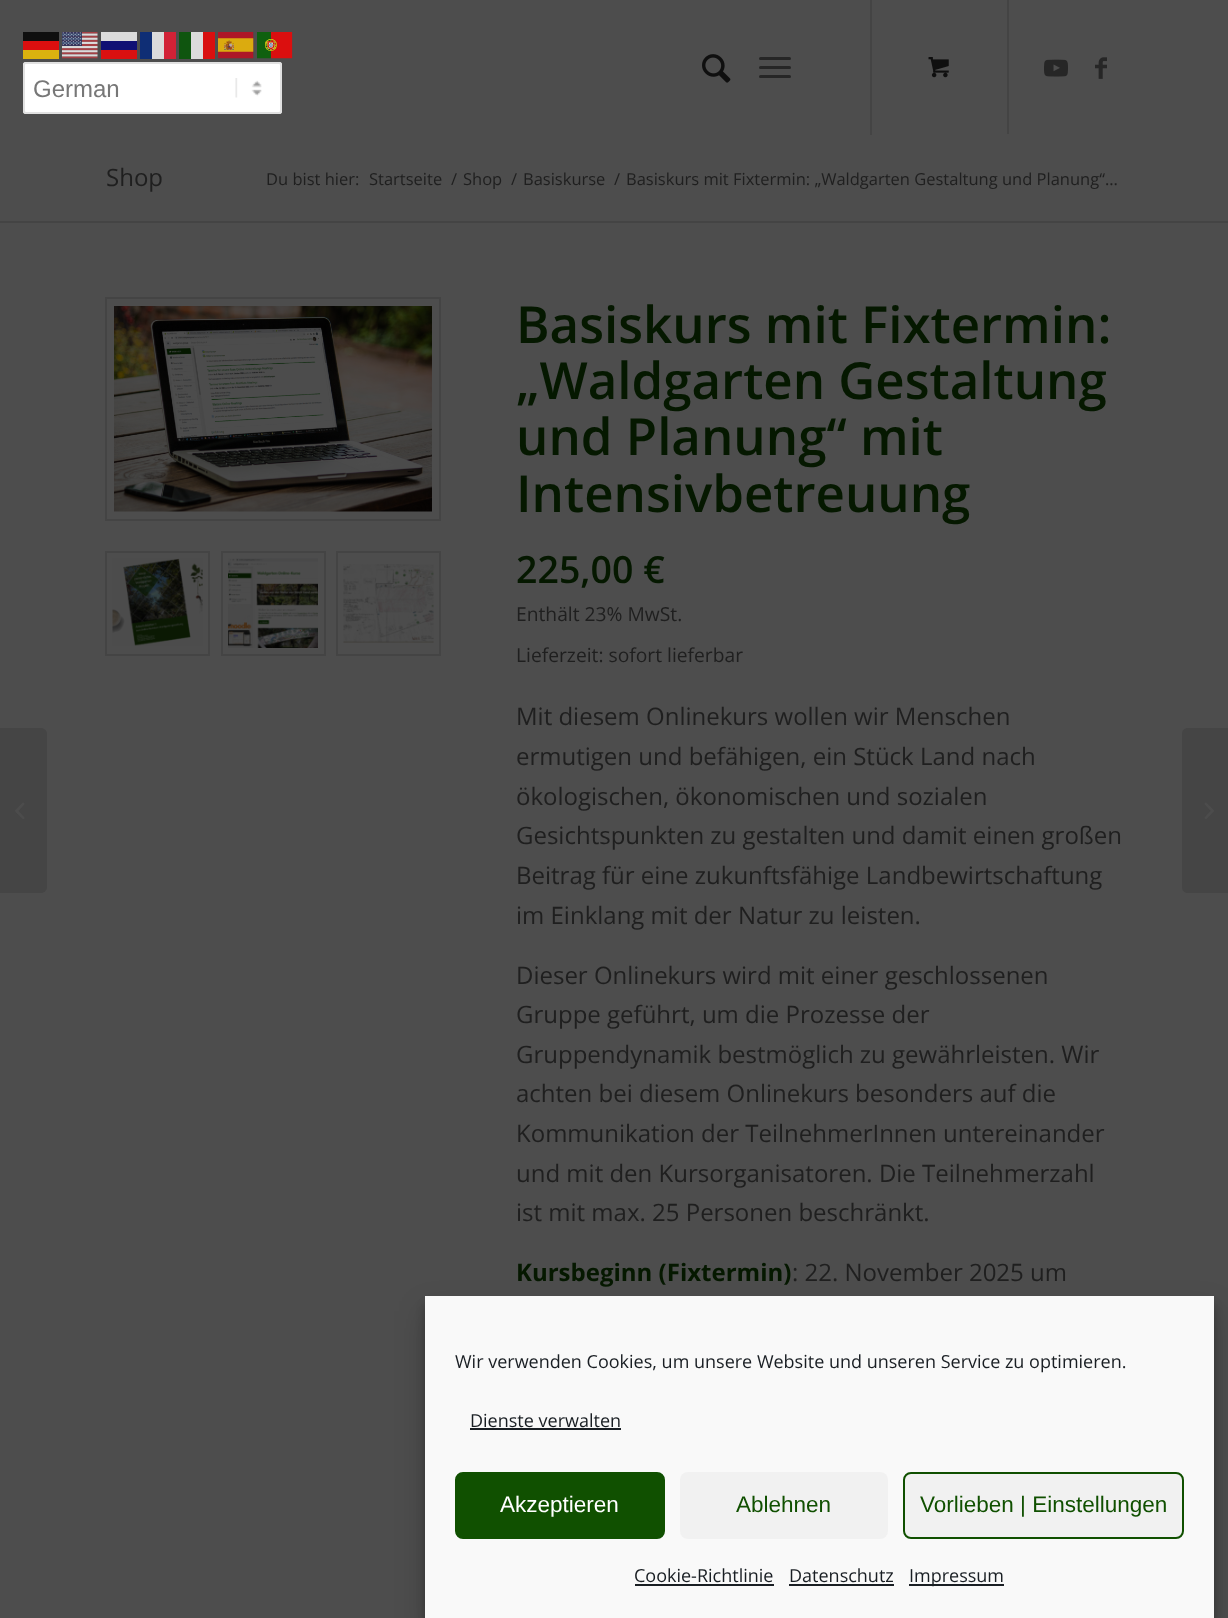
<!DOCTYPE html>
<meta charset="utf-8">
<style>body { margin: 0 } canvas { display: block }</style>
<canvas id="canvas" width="1228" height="1618"></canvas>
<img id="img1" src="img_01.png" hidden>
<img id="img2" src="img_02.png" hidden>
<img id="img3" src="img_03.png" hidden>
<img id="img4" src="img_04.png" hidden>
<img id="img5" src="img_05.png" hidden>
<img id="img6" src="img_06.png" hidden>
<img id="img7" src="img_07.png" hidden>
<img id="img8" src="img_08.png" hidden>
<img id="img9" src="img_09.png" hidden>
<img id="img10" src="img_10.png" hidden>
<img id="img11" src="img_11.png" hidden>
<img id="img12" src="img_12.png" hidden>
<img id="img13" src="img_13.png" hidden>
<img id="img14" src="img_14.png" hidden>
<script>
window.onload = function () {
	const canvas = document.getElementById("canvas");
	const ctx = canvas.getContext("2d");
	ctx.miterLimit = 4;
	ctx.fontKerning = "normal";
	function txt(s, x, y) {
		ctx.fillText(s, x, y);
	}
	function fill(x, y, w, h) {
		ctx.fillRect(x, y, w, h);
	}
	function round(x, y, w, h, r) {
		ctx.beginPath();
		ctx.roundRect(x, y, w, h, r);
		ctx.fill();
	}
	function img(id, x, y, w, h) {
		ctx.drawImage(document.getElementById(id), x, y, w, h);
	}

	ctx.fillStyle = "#4D4D4D";
	fill(0, 0, 1228, 1618);
	ctx.fillStyle = "#0F0F0F";
	fill(23, 32, 36, 9);
	img("img1", 62, 32, 36, 27);
	ctx.fillStyle = "#DBDBDB";
	fill(101, 32, 36, 9);
	ctx.fillStyle = "#0F2E75";
	fill(140, 32, 12, 27);
	ctx.fillStyle = "#DBDBDB";
	fill(152, 32, 12, 27);
	ctx.fillStyle = "#D22236";
	fill(164, 32, 12, 27);
	ctx.fillStyle = "#0F550F";
	fill(179, 32, 12, 27);
	ctx.fillStyle = "#DBDBDB";
	fill(191, 32, 12, 27);
	ctx.fillStyle = "#D90F0F";
	fill(203, 32, 12, 27);
	img("img2", 218, 32, 36, 27);
	img("img3", 257, 32, 36, 27);
	ctx.fillStyle = "#DB0F0F";
	fill(23, 41, 36, 9);
	ctx.fillStyle = "#101074";
	fill(101, 41, 36, 9);
	ctx.fillStyle = "#DBB20F";
	fill(23, 50, 36, 9);
	ctx.fillStyle = "#DA1010";
	fill(101, 50, 36, 9);
	ctx.fillStyle = "#FFFFFF";
	round(23, 62, 259, 52, 3);
	img("img4", 235, 78, 27, 20);
	ctx.beginPath();
	ctx.roundRect(24, 63, 257, 50, 2);
	ctx.strokeStyle = "#E1E1E1";
	ctx.lineWidth = 2;
	ctx.stroke();
	ctx.fillStyle = "#444444";
	fill(870, 0, 2, 135);
	img("img5", 702, 54, 29, 29);
	ctx.fillStyle = "#262626";
	round(759, 66, 32, 3, 1.5);
	round(759, 57, 32, 3, 1.5);
	round(759, 75, 32, 3, 1.5);
	ctx.fillStyle = "#444444";
	fill(1007, 0, 2, 134);
	img("img6", 928, 57, 21, 21);
	img("img7", 1044, 59, 24, 18);
	img("img8", 1095, 57, 12, 22);
	ctx.fillStyle = "#454545";
	ctx.beginPath();
	ctx.roundRect(0, 728, 47, 165, [0, 6, 6, 0]);
	ctx.fill();
	img("img9", 15, 802, 10, 17);
	ctx.fillStyle = "#444444";
	fill(0, 221, 1228, 2);
	ctx.strokeStyle = "#444444";
	ctx.strokeRect(106, 298, 334, 222);
	img("img10", 114, 306, 318, 206);
	ctx.strokeRect(106, 552, 103, 103);
	img("img11", 112, 558, 91, 88);
	ctx.strokeRect(222, 552, 103, 103);
	img("img12", 228, 558, 90, 90);
	ctx.strokeRect(337, 552, 103, 103);
	img("img13", 343, 564, 91, 79);
	ctx.fillStyle = "#454545";
	ctx.beginPath();
	ctx.moveTo(1188, 728);
	ctx.lineTo(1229, 728);
	ctx.lineTo(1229, 893);
	ctx.lineTo(1188, 893);
	ctx.bezierCurveTo(1184.5, 893, 1182, 890.5, 1182, 887);
	ctx.lineTo(1182, 734);
	ctx.bezierCurveTo(1182, 730.5, 1184.5, 728, 1188, 728);
	ctx.closePath();
	ctx.fill();
	img("img14", 1204, 802, 10, 17);
	ctx.fillStyle = "rgba(0, 0, 0, 0.23)";
	ctx.filter = "blur(4.5px)";
	ctx.beginPath();
	ctx.rect(425, 1305, 789, 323);
	ctx.fill();
	ctx.filter = "none";
	ctx.fillStyle = "rgba(0, 0, 0, 0.19)";
	ctx.filter = "blur(15px)";
	ctx.beginPath();
	ctx.rect(425, 1311, 789, 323);
	ctx.fill();
	ctx.filter = "none";
	ctx.fillStyle = "#F9F9F9";
	fill(425, 1296, 789, 322);
	ctx.fillStyle = "#191E23";
	fill(470, 1428, 151, 2);
	ctx.fillStyle = "#105000";
	ctx.beginPath();
	ctx.roundRect(456, 1473, 208, 65, 7);
	ctx.fill();
	ctx.strokeStyle = "#105000";
	ctx.stroke();
	ctx.fillStyle = "#F1F1F1";
	round(680, 1472, 208, 67, 8);
	ctx.beginPath();
	ctx.roundRect(904, 1473, 279, 65, 7);
	ctx.fill();
	ctx.stroke();
	ctx.fillStyle = "#191E23";
	fill(635, 1584, 139, 2);
	fill(789, 1584, 105, 2);
	fill(909, 1584, 95, 2);
	ctx.font = "24px Liberation Sans";
	ctx.fillStyle = "#777777";
	txt("German", 33, 97);
	ctx.font = "24px Open Sans";
	ctx.fillStyle = "#1F1F1F";
	txt("Shop", 106, 186);
	ctx.font = "16.5px Open Sans";
	txt("Du bist hier:", 266, 185);
	txt("Startseite", 369, 185);
	txt("/", 451, 185);
	txt("Shop", 463, 185);
	txt("/", 511, 185);
	txt("Basiskurse", 523, 185);
	txt("/", 614, 185);
	txt("Basiskurs mit Fixtermin: „Waldgarten Gestaltung und Planung“...", 626, 185);
	ctx.font = "600 51px Open Sans";
	ctx.fillStyle = "#051800";
	txt("Basiskurs mit Fixtermin:", 516, 343);
	txt("„Waldgarten Gestaltung", 516, 399);
	txt("und Planung“ mit", 516, 455);
	txt("Intensivbetreuung", 516, 512);
	ctx.font = "600 37.5px Open Sans";
	txt("225,00 €", 516, 583);
	ctx.font = "19.25px Open Sans";
	ctx.fillStyle = "#1F1F1F";
	txt("Enthält 23% MwSt.", 516, 621);
	txt("Lieferzeit: sofort lieferbar", 516, 662);
	ctx.font = "24px Open Sans";
	txt("Mit diesem Onlinekurs wollen wir Menschen", 516, 725);
	txt("ermutigen und befähigen, ein Stück Land nach", 516, 765);
	txt("ökologischen, ökonomischen und sozialen", 516, 805);
	txt("Gesichtspunkten zu gestalten und damit einen großen", 516, 844);
	txt("Beitrag für eine zukunftsfähige Landbewirtschaftung", 516, 884);
	txt("im Einklang mit der Natur zu leisten.", 516, 924);
	txt("Dieser Onlinekurs wird mit einer geschlossenen", 516, 984);
	txt("Gruppe geführt, um die Prozesse der", 516, 1023);
	txt("Gruppendynamik bestmöglich zu gewährleisten. Wir", 516, 1063);
	txt("achten bei diesem Onlinekurs besonders auf die", 516, 1102);
	txt("Kommunikation der TeilnehmerInnen untereinander", 516, 1142);
	txt("und mit den Kursorganisatoren. Die Teilnehmerzahl", 516, 1182);
	txt("ist mit max. 25 Personen beschränkt.", 516, 1221);
	ctx.font = "bold 24px Open Sans";
	ctx.fillStyle = "#051800";
	txt("Kursbeginn (Fixtermin)", 516, 1281);
	ctx.font = "24px Open Sans";
	ctx.fillStyle = "#1F1F1F";
	txt(": 22. November 2025 um", 792, 1281);
	ctx.font = "18px Open Sans";
	ctx.fillStyle = "#191E23";
	txt("Wir verwenden Cookies, um unsere Website und unseren Service zu optimieren.", 455, 1368);
	txt("Dienste verwalten", 470, 1427);
	ctx.font = "22.5px Liberation Sans";
	ctx.fillStyle = "#FFFFFF";
	txt("Akzeptieren", 500, 1512);
	ctx.fillStyle = "#105000";
	txt("Ablehnen", 736, 1512);
	txt("Vorlieben | Einstellungen", 920, 1512);
	ctx.font = "18px Open Sans";
	ctx.fillStyle = "#191E23";
	txt("Cookie-Richtlinie", 634, 1582);
	txt("Datenschutz", 789, 1582);
	txt("Impressum", 909, 1582);
};
</script>
